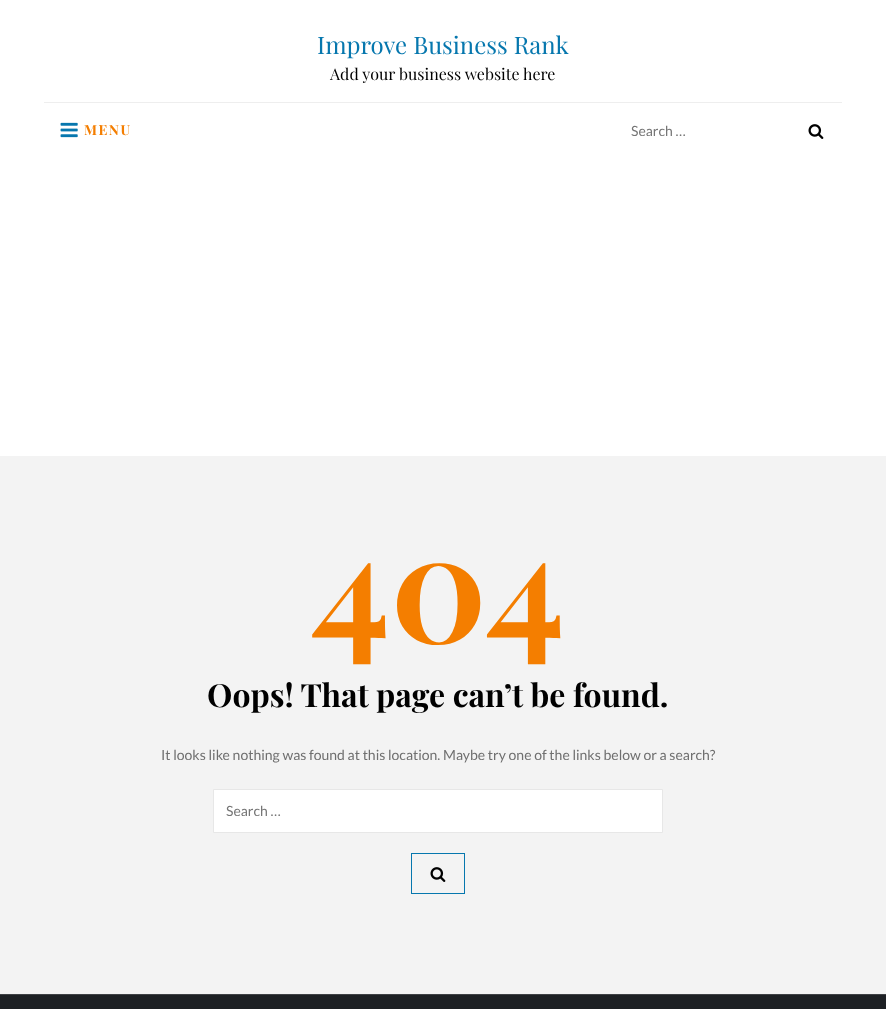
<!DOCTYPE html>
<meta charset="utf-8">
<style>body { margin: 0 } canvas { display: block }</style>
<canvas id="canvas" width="886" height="1009"></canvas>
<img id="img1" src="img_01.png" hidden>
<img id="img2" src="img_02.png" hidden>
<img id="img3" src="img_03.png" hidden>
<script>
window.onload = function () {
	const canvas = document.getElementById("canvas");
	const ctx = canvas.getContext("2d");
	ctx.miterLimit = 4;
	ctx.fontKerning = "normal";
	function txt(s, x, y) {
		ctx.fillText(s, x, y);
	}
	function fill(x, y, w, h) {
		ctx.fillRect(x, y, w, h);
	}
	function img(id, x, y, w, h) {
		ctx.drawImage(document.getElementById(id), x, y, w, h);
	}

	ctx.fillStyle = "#F3F3F3";
	fill(0, 0, 886, 1009);
	ctx.fillStyle = "#FFFFFF";
	fill(0, 0, 886, 456);
	ctx.fillStyle = "#EEEEEE";
	fill(44, 102, 798, 1);
	img("img1", 60, 122, 18, 16);
	img("img2", 808, 124, 16, 15);
	ctx.fillStyle = "#FFFFFF";
	ctx.beginPath();
	ctx.rect(213.5, 789.5, 449, 43);
	ctx.fill();
	ctx.strokeStyle = "#E7E7E7";
	ctx.stroke();
	ctx.strokeStyle = "#0677AE";
	ctx.strokeRect(411.5, 853.5, 53, 40);
	img("img3", 430, 867, 16, 15);
	ctx.fillStyle = "#1D2024";
	fill(0, 995, 886, 14);
	ctx.fillStyle = "#3F4145";
	fill(0, 994, 886, 1);
	ctx.font = "24px Playfair Display";
	ctx.fillStyle = "#0677AE";
	txt("Improve Business Rank", 317, 54);
	ctx.font = "16px Playfair Display";
	ctx.fillStyle = "#000000";
	txt("Add your business website here", 330, 80);
	ctx.letterSpacing = "1.5px";
	ctx.font = "bold 14px Playfair Display";
	ctx.fillStyle = "#F47E00";
	txt("MENU", 84, 135);
	ctx.letterSpacing = "0px";
	ctx.font = "14px Lato";
	ctx.fillStyle = "#757575";
	txt("Search …", 631, 136);
	ctx.font = "bold 150px Playfair Display";
	ctx.fillStyle = "#F47E00";
	txt("404", 311, 643);
	ctx.font = "bold 32px Playfair Display";
	ctx.fillStyle = "#000000";
	txt("Oops! That page can’t be found.", 207, 707);
	ctx.font = "14px Lato";
	ctx.fillStyle = "#6F6F6F";
	txt("It looks like nothing was found at this location. Maybe try one of the links below or a search?", 161, 760);
	ctx.fillStyle = "#757575";
	txt("Search …", 226, 816);
};
</script>
